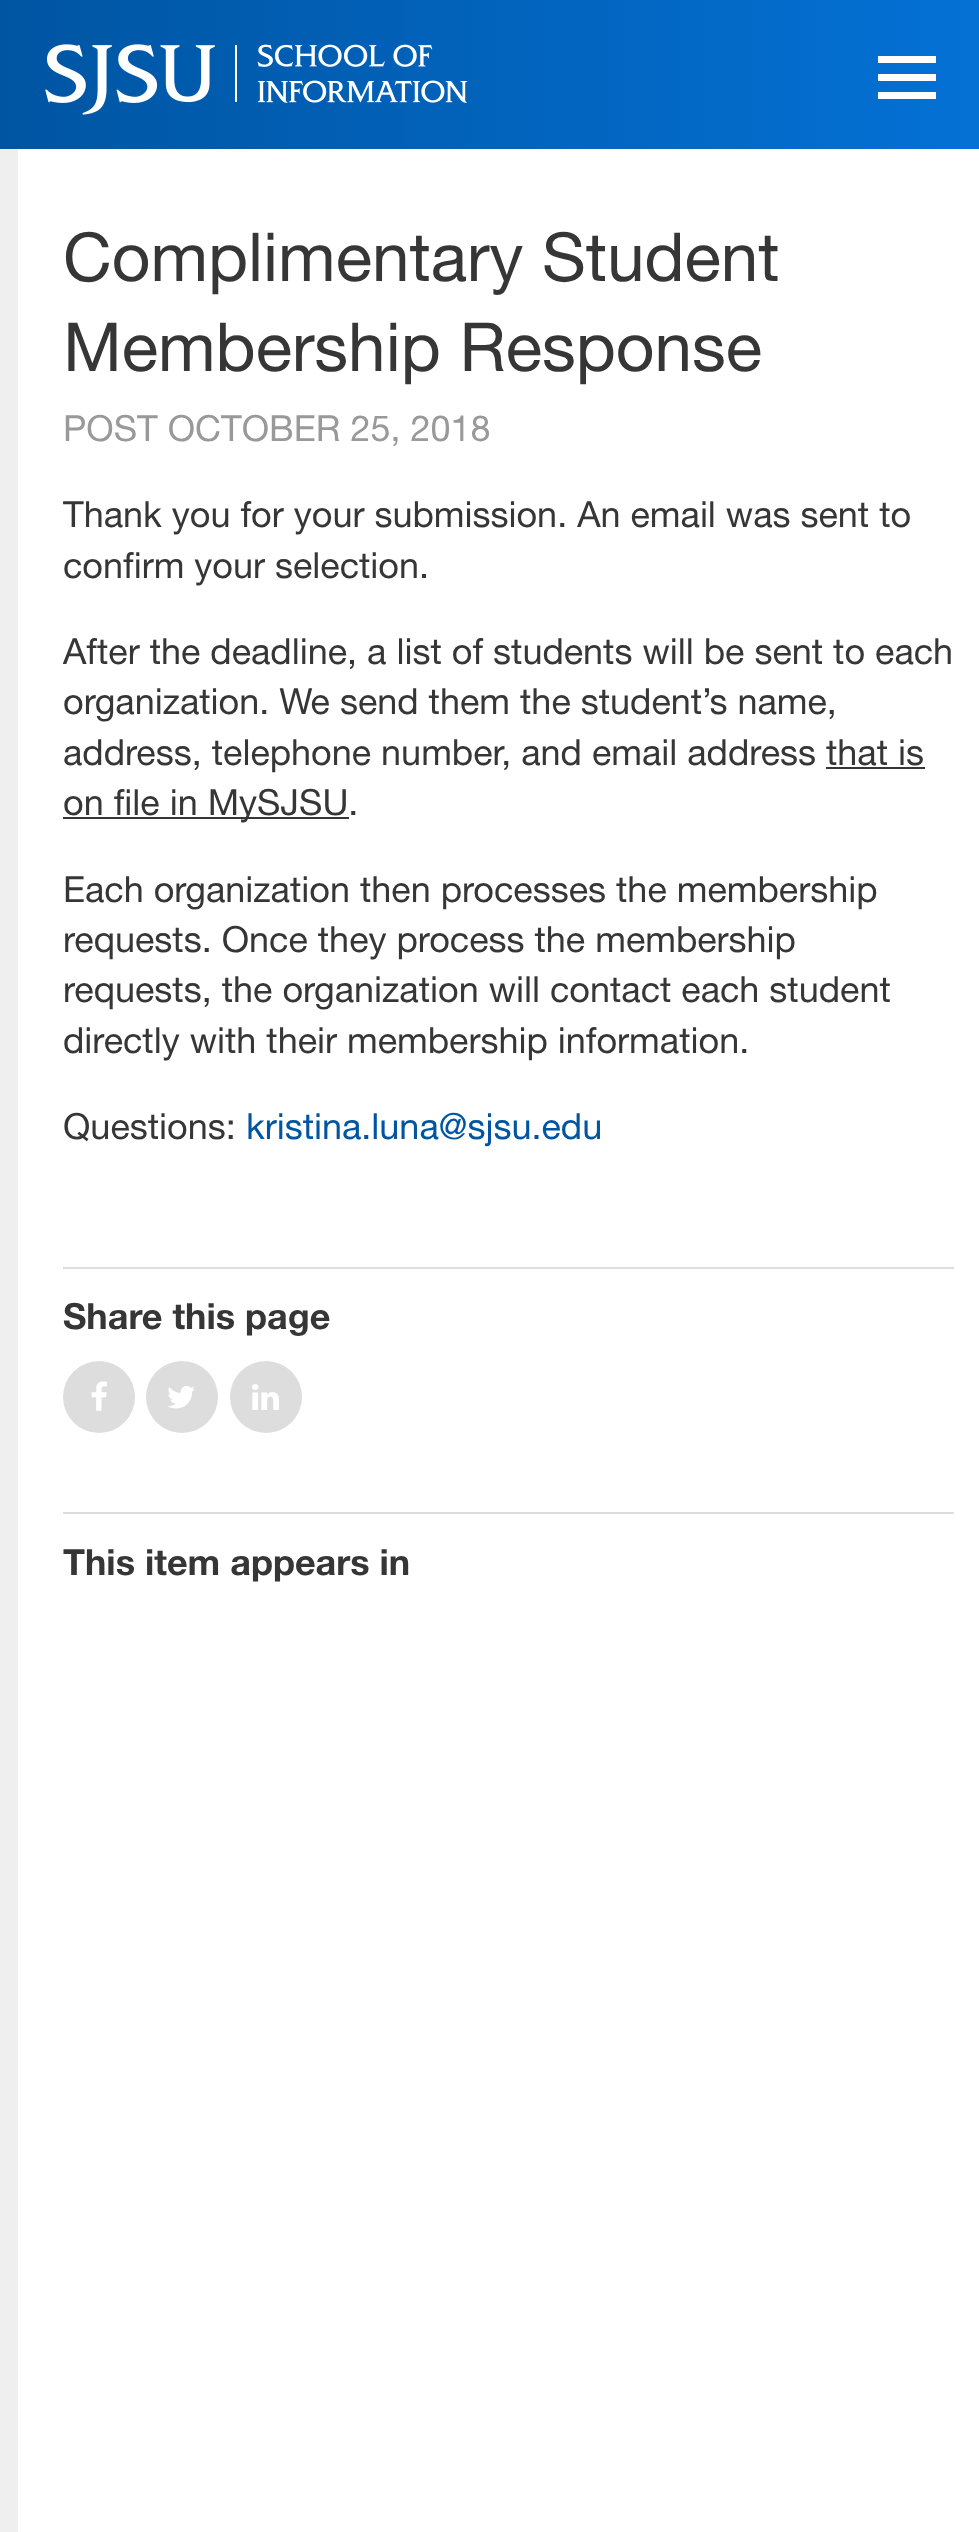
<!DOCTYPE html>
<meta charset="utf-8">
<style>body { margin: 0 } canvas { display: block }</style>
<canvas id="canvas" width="979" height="2532"></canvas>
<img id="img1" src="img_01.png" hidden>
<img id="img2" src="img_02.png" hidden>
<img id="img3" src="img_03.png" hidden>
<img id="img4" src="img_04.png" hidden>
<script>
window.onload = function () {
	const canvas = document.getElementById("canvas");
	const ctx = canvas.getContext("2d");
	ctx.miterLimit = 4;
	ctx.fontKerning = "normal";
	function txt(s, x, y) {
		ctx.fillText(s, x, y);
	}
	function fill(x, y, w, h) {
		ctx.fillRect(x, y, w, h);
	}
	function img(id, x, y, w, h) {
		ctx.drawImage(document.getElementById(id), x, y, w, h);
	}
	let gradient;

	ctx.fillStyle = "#EFEFEF";
	fill(0, 0, 979, 2532);
	ctx.fillStyle = "#FFFFFF";
	fill(18, 149, 961, 2383);
	gradient = ctx.createLinearGradient(0, 74, 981, 74);
	gradient.addColorStop(0, "#0055A2");
	gradient.addColorStop(1, "#0471D5");
	ctx.fillStyle = gradient;
	fill(0, 0, 979, 149);
	img("img1", 45, 44, 423, 71);
	ctx.fillStyle = "#FFFFFF";
	fill(878, 74, 58, 7);
	fill(878, 56, 58, 7);
	fill(878, 92, 58, 7);
	ctx.fillStyle = "#363636";
	fill(826, 767, 99, 2);
	fill(63, 817, 286, 2);
	ctx.fillStyle = "#DDDDDD";
	fill(63, 1267, 891, 2);
	ctx.beginPath();
	ctx.arc(99, 1397, 36, 0, Math.PI * 2);
	ctx.fill();
	img("img2", 91, 1381, 16, 30);
	ctx.beginPath();
	ctx.arc(182, 1397, 36, 0, Math.PI * 2);
	ctx.fill();
	img("img3", 168, 1386, 27, 23);
	ctx.beginPath();
	ctx.arc(266, 1397, 36, 0, Math.PI * 2);
	ctx.fill();
	img("img4", 252, 1384, 27, 26);
	fill(63, 1512, 891, 2);
	ctx.font = "67.5px 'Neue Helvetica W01'";
	ctx.fillStyle = "#363636";
	txt("Complimentary Student", 63, 281);
	txt("Membership Response", 63, 371);
	ctx.font = "36px 'Neue Helvetica W01'";
	ctx.fillStyle = "#999999";
	txt("POST OCTOBER 25, 2018", 63, 441);
	ctx.fillStyle = "#363636";
	txt("Thank you for your submission. An email was sent to", 63, 527);
	txt("confirm your selection.", 63, 578);
	txt("After the deadline, a list of students will be sent to each", 63, 664);
	txt("organization. We send them the student’s name,", 63, 714);
	txt("address, telephone number, and email address that is", 63, 765);
	txt("on file in MySJSU.", 63, 815);
	txt("Each organization then processes the membership", 63, 902);
	txt("requests. Once they process the membership", 63, 952);
	txt("requests, the organization will contact each student", 63, 1002);
	txt("directly with their membership information.", 63, 1053);
	txt("Questions:", 63, 1139);
	ctx.fillStyle = "#0055A2";
	txt("kristina.luna@sjsu.edu", 246, 1139);
	ctx.font = "bold 36px 'Neue Helvetica W01'";
	ctx.fillStyle = "#363636";
	txt("Share this page", 63, 1329);
	txt("This item appears in", 63, 1575);
};
</script>
